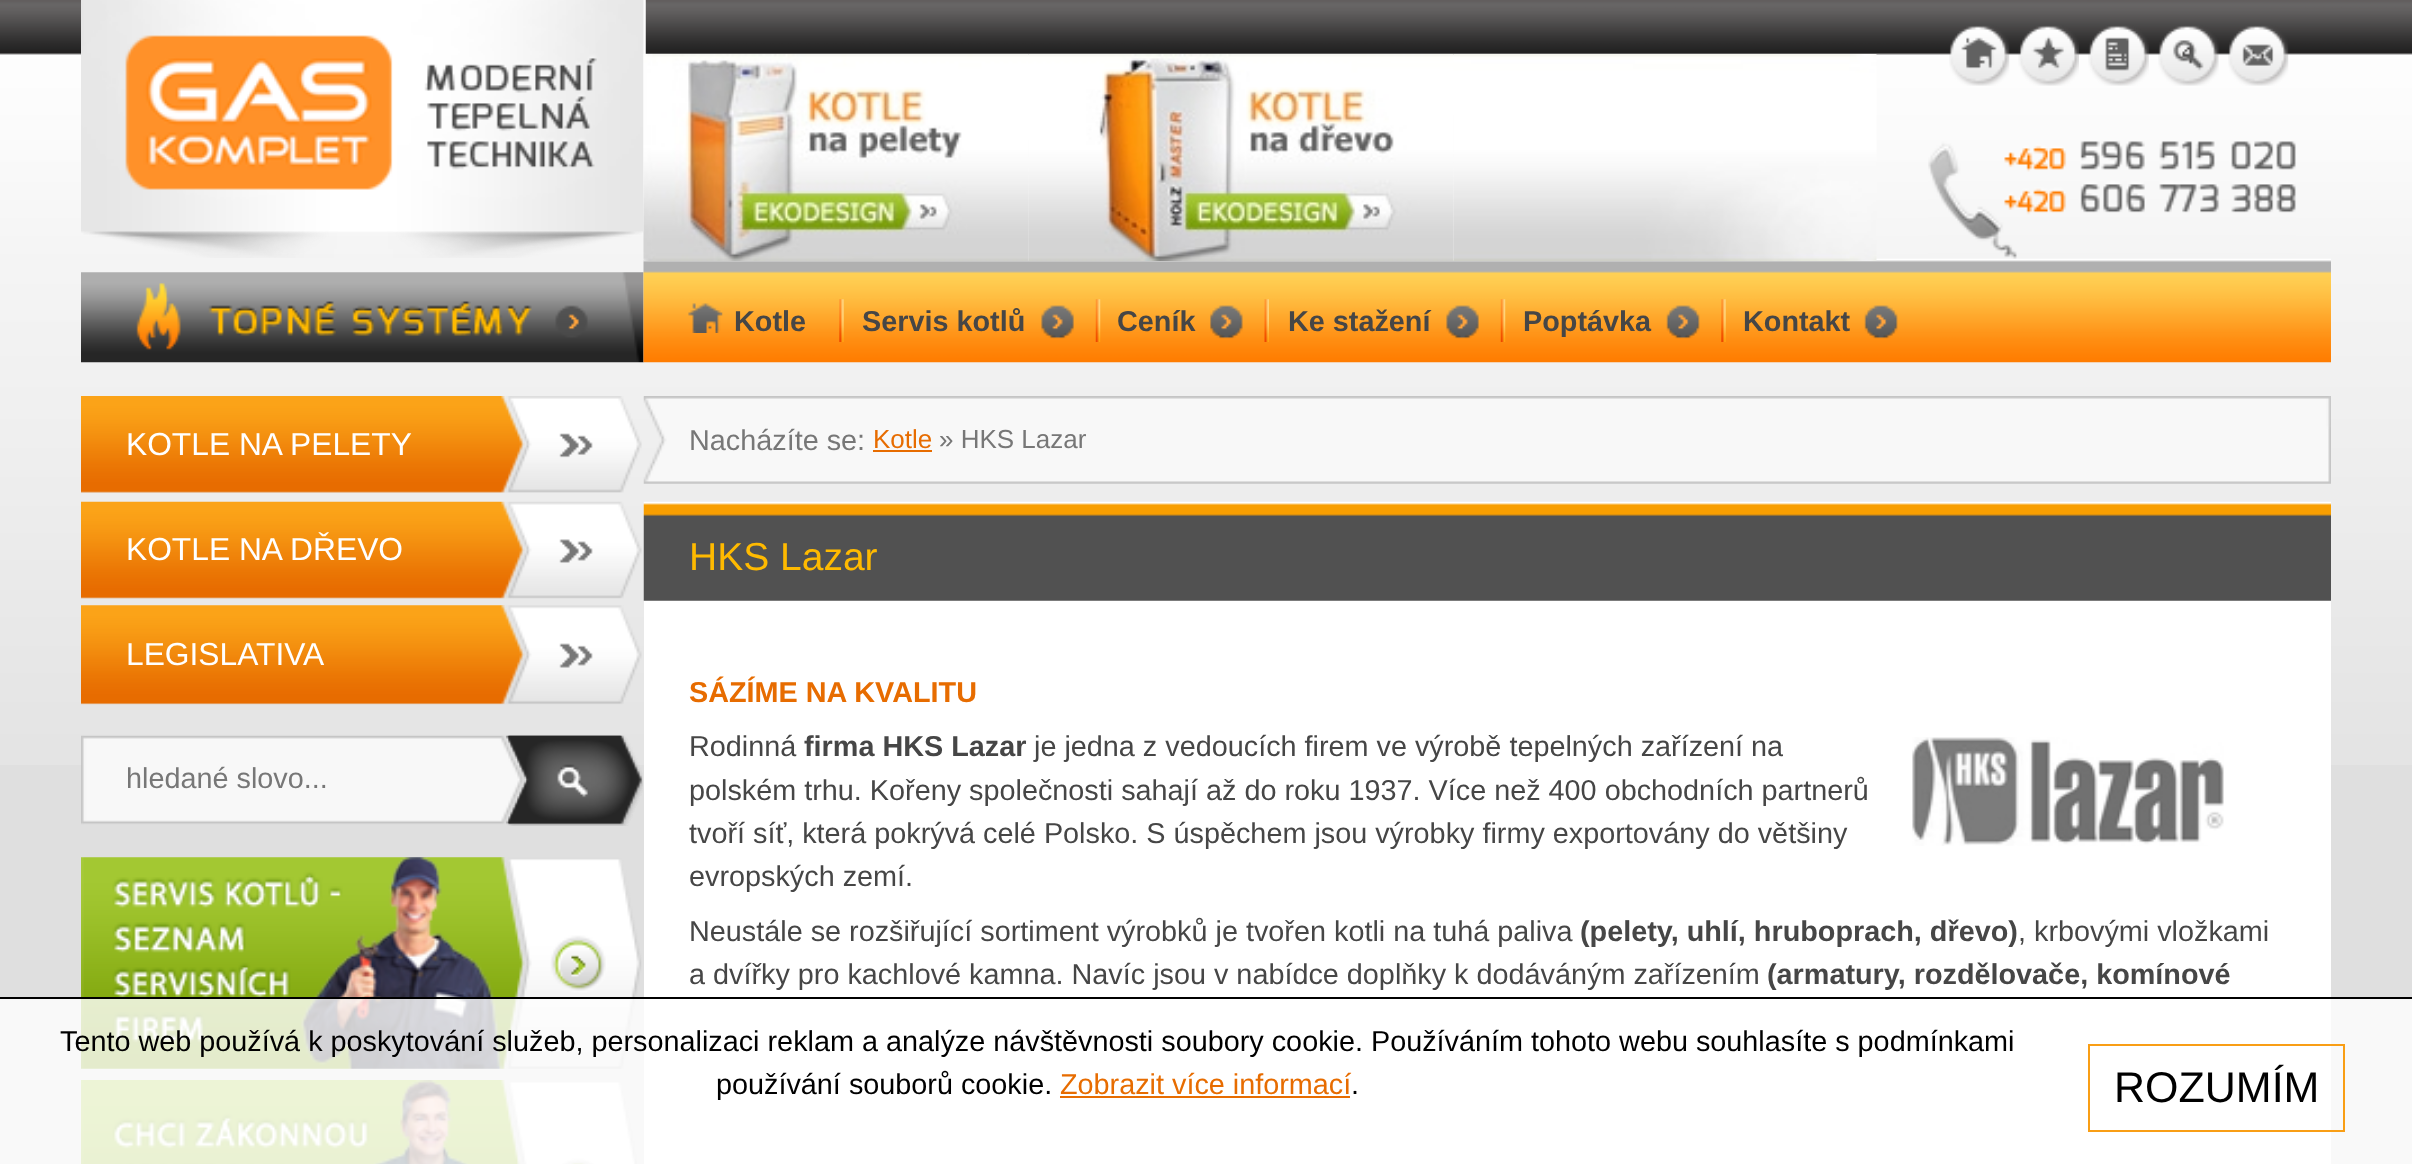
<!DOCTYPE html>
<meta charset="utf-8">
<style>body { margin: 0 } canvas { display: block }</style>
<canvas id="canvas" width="2412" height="1164"></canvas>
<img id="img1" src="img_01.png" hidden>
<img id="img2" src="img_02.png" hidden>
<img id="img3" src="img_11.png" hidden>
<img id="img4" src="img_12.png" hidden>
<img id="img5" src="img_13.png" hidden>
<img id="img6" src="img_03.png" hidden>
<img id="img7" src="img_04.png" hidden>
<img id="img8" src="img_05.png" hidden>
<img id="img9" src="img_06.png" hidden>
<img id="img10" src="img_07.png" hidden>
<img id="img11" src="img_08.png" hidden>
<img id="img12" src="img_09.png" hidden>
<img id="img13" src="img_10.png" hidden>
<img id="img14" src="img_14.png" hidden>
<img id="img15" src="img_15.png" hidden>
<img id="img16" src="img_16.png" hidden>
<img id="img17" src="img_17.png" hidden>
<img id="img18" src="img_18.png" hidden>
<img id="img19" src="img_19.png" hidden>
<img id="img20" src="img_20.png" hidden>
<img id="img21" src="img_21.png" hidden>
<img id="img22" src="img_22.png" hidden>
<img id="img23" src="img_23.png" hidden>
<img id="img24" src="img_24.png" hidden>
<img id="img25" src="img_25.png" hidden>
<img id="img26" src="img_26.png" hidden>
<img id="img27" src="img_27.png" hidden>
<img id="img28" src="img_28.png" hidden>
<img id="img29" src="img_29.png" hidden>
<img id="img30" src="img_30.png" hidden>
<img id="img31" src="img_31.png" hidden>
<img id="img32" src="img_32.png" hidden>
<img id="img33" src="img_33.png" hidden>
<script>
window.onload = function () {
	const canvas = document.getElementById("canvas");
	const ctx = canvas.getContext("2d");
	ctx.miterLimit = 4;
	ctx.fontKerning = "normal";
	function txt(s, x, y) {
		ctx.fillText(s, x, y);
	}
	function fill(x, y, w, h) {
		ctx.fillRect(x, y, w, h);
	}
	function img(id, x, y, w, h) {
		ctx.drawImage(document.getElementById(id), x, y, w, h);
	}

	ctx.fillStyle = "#DFDFDF";
	fill(0, 0, 2412, 1164);
	img("img1", 0, 0, 2412, 765);
	img("img2", 81, 0, 565, 258);
	img("img3", 1928, 141, 368, 118);
	img("img4", 81, 272, 563, 91);
	img("img5", 643, 258, 1688, 105);
	img("img6", 643, 54, 386, 207);
	img("img7", 1028, 54, 426, 207);
	img("img8", 1453, 54, 424, 207);
	img("img9", 1949, 25, 61, 61);
	img("img10", 2018, 25, 61, 61);
	img("img11", 2088, 25, 61, 61);
	img("img12", 2158, 25, 61, 61);
	img("img13", 2228, 25, 61, 61);
	img("img14", 839, 299, 5, 43);
	img("img15", 688, 303, 35, 30);
	img("img16", 1095, 299, 6, 43);
	img("img17", 1041, 305, 33, 34);
	img("img18", 1264, 299, 5, 43);
	img("img19", 1210, 305, 33, 34);
	img("img20", 1500, 299, 6, 43);
	img("img21", 1446, 305, 33, 34);
	img("img14", 1721, 299, 5, 43);
	img("img22", 1666, 305, 34, 34);
	img("img23", 1864, 305, 34, 34);
	img("img24", 81, 396, 561, 97);
	img("img25", 81, 501, 561, 98);
	img("img26", 81, 605, 561, 100);
	img("img27", 81, 735, 562, 91);
	img("img28", 506, 735, 137, 91);
	img("img29", 81, 857, 561, 212);
	img("img30", 81, 1080, 556, 84);
	img("img31", 643, 396, 1688, 88);
	ctx.fillStyle = "#E76C00";
	fill(873, 450, 59, 2);
	ctx.fillStyle = "#FFFFFF";
	fill(644, 600, 1687, 564);
	img("img32", 643, 501, 1688, 100);
	img("img33", 1912, 737, 312, 109);
	ctx.fillStyle = "rgba(255, 255, 255, 0.8)";
	fill(0, 999, 2412, 165);
	ctx.fillStyle = "#000000";
	fill(0, 997, 2412, 2);
	ctx.fillStyle = "#E76C00";
	fill(1060, 1096, 290, 2);
	ctx.strokeStyle = "#F99E15";
	ctx.lineWidth = 2;
	ctx.strokeRect(2089, 1045, 255, 86);
	ctx.font = "bold 28.8px Liberation Sans";
	ctx.fillStyle = "#464646";
	txt("Kotle", 734, 331);
	txt("Servis kotlů", 862, 331);
	txt("Ceník", 1117, 331);
	txt("Ke stažení", 1288, 331);
	txt("Poptávka", 1523, 331);
	txt("Kontakt", 1743, 331);
	ctx.font = "31.75px Liberation Sans";
	ctx.fillStyle = "#FFFFFF";
	txt("KOTLE NA PELETY", 126, 455);
	txt("KOTLE NA DŘEVO", 126, 560);
	txt("LEGISLATIVA", 126, 665);
	ctx.font = "28.8px Liberation Sans";
	ctx.fillStyle = "#777777";
	txt("hledané slovo...", 126, 788);
	txt("Nacházíte se:", 689, 450);
	ctx.font = "26px Liberation Sans";
	ctx.fillStyle = "#E76C00";
	txt("Kotle", 873, 448);
	ctx.fillStyle = "#777777";
	txt("» HKS Lazar", 939, 448);
	ctx.font = "39px Liberation Sans";
	ctx.fillStyle = "#FFBA00";
	txt("HKS Lazar", 689, 570);
	ctx.font = "bold 28.8px Liberation Sans";
	ctx.fillStyle = "#E76C00";
	txt("SÁZÍME NA KVALITU", 689, 702);
	ctx.font = "28.8px Liberation Sans";
	ctx.fillStyle = "#464646";
	txt("Rodinná", 689, 756);
	ctx.font = "bold 28.8px Liberation Sans";
	txt("firma HKS Lazar", 804, 756);
	ctx.font = "28.8px Liberation Sans";
	txt("je jedna z vedoucích firem ve výrobě tepelných zařízení na", 1034, 756);
	txt("polském trhu. Kořeny společnosti sahají až do roku 1937. Více než 400 obchodních partnerů", 689, 800);
	txt("tvoří síť, která pokrývá celé Polsko. S úspěchem jsou výrobky firmy exportovány do většiny", 689, 843);
	txt("evropských zemí.", 689, 886);
	txt("Neustále se rozšiřující sortiment výrobků je tvořen kotli na tuhá paliva", 689, 941);
	ctx.font = "bold 28.8px Liberation Sans";
	txt("(pelety, uhlí, hruboprach, dřevo)", 1580, 941);
	ctx.font = "28.8px Liberation Sans";
	txt(", krbovými vložkami", 2018, 941);
	txt("a dvířky pro kachlové kamna. Navíc jsou v nabídce doplňky k dodáváným zařízením", 689, 984);
	ctx.font = "bold 28.8px Liberation Sans";
	txt("(armatury, rozdělovače, komínové", 1767, 984);
	ctx.font = "28.8px Liberation Sans";
	ctx.fillStyle = "#000000";
	txt("Tento web používá k poskytování služeb, personalizaci reklam a analýze návštěvnosti soubory cookie. Používáním tohoto webu souhlasíte s podmínkami", 60, 1051);
	txt("používání souborů cookie.", 716, 1094);
	ctx.fillStyle = "#E76C00";
	txt("Zobrazit více informací", 1060, 1094);
	ctx.fillStyle = "#000000";
	txt(".", 1351, 1094);
	ctx.font = "43px Liberation Sans";
	txt("ROZUMÍM", 2114, 1102);
};
</script>
